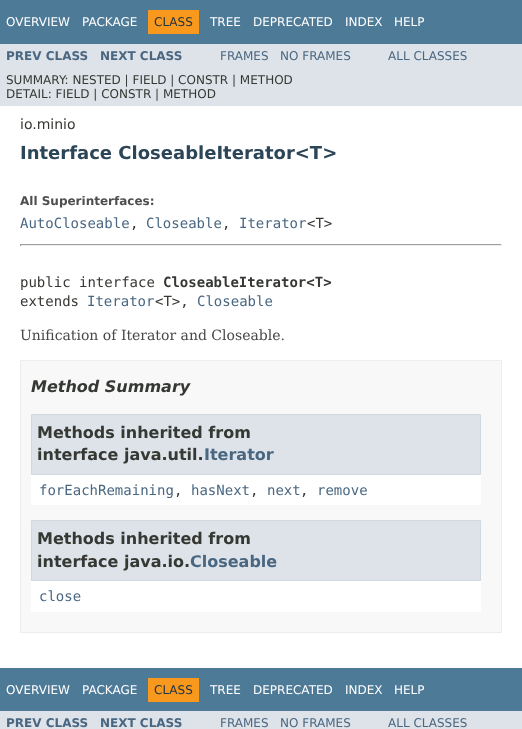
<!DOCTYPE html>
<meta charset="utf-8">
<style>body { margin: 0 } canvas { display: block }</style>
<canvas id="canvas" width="522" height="729"></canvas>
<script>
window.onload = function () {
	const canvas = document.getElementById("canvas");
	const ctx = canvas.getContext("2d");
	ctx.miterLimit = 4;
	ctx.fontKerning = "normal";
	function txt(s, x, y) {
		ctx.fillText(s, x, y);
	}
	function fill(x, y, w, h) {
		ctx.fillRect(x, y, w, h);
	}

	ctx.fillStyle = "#FFFFFF";
	fill(0, 0, 522, 729);
	ctx.fillStyle = "#4D7A97";
	fill(0, 0, 522, 44);
	ctx.fillStyle = "#F8981D";
	fill(148, 10, 51, 24);
	ctx.fillStyle = "#DEE3E9";
	fill(0, 44, 522, 62);
	ctx.fillStyle = "#9F9F9F";
	fill(20, 244, 482, 1);
	ctx.fillStyle = "#EEEEEE";
	fill(501, 244, 1, 2);
	fill(20, 245, 482, 1);
	ctx.fillStyle = "#9F9F9F";
	fill(20, 244, 1, 2);
	ctx.fillStyle = "#F8F8F8";
	ctx.beginPath();
	ctx.rect(20.5, 360.5, 481, 272);
	ctx.fill();
	ctx.strokeStyle = "#EDEDED";
	ctx.stroke();
	ctx.fillStyle = "#FFFFFF";
	fill(31, 475, 450, 30);
	ctx.fillStyle = "#DEE3E9";
	ctx.beginPath();
	ctx.rect(31.5, 414.5, 449, 60);
	ctx.fill();
	ctx.strokeStyle = "#D0D9E0";
	ctx.stroke();
	ctx.fillStyle = "#FFFFFF";
	fill(31, 581, 450, 31);
	ctx.fillStyle = "#DEE3E9";
	ctx.beginPath();
	ctx.rect(31.5, 520.5, 449, 60);
	ctx.fill();
	ctx.stroke();
	ctx.fillStyle = "#4D7A97";
	fill(0, 668, 522, 43);
	ctx.fillStyle = "#F8981D";
	fill(148, 678, 51, 24);
	ctx.fillStyle = "#DEE3E9";
	fill(0, 711, 522, 18);
	ctx.font = "12px DejaVu Sans";
	ctx.fillStyle = "#FFFFFF";
	txt("OVERVIEW", 6, 26);
	txt("PACKAGE", 82, 26);
	ctx.fillStyle = "#253441";
	txt("CLASS", 154, 26);
	ctx.fillStyle = "#FFFFFF";
	txt("TREE", 210, 26);
	txt("DEPRECATED", 253, 26);
	txt("INDEX", 345, 26);
	txt("HELP", 394, 26);
	ctx.font = "bold 12px DejaVu Sans";
	ctx.fillStyle = "#4A6782";
	txt("PREV CLASS", 6, 60);
	txt("NEXT CLASS", 100, 60);
	ctx.font = "12px DejaVu Sans";
	txt("FRAMES", 220, 60);
	txt("NO FRAMES", 280, 60);
	txt("ALL CLASSES", 388, 60);
	ctx.fillStyle = "#353833";
	txt("SUMMARY: NESTED | FIELD | CONSTR | METHOD", 6, 84);
	txt("DETAIL: FIELD | CONSTR | METHOD", 6, 98);
	ctx.font = "14px DejaVu Sans";
	txt("io.minio", 20, 129);
	ctx.font = "bold 18px DejaVu Sans";
	ctx.fillStyle = "#2C4557";
	txt("Interface CloseableIterator<T>", 20, 159);
	ctx.font = "bold 12px DejaVu Sans";
	ctx.fillStyle = "#4E4E4E";
	txt("All Superinterfaces:", 20, 205);
	ctx.font = "14px DejaVu Sans Mono";
	ctx.fillStyle = "#4A6782";
	txt("AutoCloseable", 20, 228);
	ctx.fillStyle = "#353833";
	txt(",", 130, 228);
	ctx.fillStyle = "#4A6782";
	txt("Closeable", 146, 228);
	ctx.fillStyle = "#353833";
	txt(",", 222, 228);
	ctx.fillStyle = "#4A6782";
	txt("Iterator", 239, 228);
	ctx.fillStyle = "#353833";
	txt("<T>", 307, 228);
	txt("public interface", 20, 287);
	ctx.font = "bold 14px DejaVu Sans Mono";
	txt("CloseableIterator<T>", 163, 287);
	ctx.font = "14px DejaVu Sans Mono";
	txt("extends", 20, 306);
	ctx.fillStyle = "#4A6782";
	txt("Iterator", 87, 306);
	ctx.fillStyle = "#353833";
	txt("<T>,", 155, 306);
	ctx.fillStyle = "#4A6782";
	txt("Closeable", 197, 306);
	ctx.font = "14px DejaVu Serif";
	ctx.fillStyle = "#474747";
	txt("Unification of Iterator and Closeable.", 20, 340);
	ctx.font = "italic bold 16px DejaVu Sans";
	ctx.fillStyle = "#353833";
	txt("Method Summary", 31, 392);
	ctx.font = "bold 16px DejaVu Sans";
	txt("Methods inherited from", 37, 438);
	txt("interface java.util.", 37, 460);
	ctx.fillStyle = "#4A6782";
	txt("Iterator", 204, 460);
	ctx.font = "14px DejaVu Sans Mono";
	txt("forEachRemaining", 39, 495);
	ctx.fillStyle = "#353833";
	txt(",", 174, 495);
	ctx.fillStyle = "#4A6782";
	txt("hasNext", 191, 495);
	ctx.fillStyle = "#353833";
	txt(",", 250, 495);
	ctx.fillStyle = "#4A6782";
	txt("next", 267, 495);
	ctx.fillStyle = "#353833";
	txt(",", 300, 495);
	ctx.fillStyle = "#4A6782";
	txt("remove", 317, 495);
	ctx.font = "bold 16px DejaVu Sans";
	ctx.fillStyle = "#353833";
	txt("Methods inherited from", 37, 544);
	txt("interface java.io.", 37, 567);
	ctx.fillStyle = "#4A6782";
	txt("Closeable", 190, 567);
	ctx.font = "14px DejaVu Sans Mono";
	txt("close", 39, 601);
	ctx.font = "12px DejaVu Sans";
	ctx.fillStyle = "#FFFFFF";
	txt("OVERVIEW", 6, 694);
	txt("PACKAGE", 82, 694);
	ctx.fillStyle = "#253441";
	txt("CLASS", 154, 694);
	ctx.fillStyle = "#FFFFFF";
	txt("TREE", 210, 694);
	txt("DEPRECATED", 253, 694);
	txt("INDEX", 345, 694);
	txt("HELP", 394, 694);
	ctx.font = "bold 12px DejaVu Sans";
	ctx.fillStyle = "#4A6782";
	txt("PREV CLASS", 6, 727);
	txt("NEXT CLASS", 100, 727);
	ctx.font = "12px DejaVu Sans";
	txt("FRAMES", 220, 727);
	txt("NO FRAMES", 280, 727);
	txt("ALL CLASSES", 388, 727);
};
</script>
